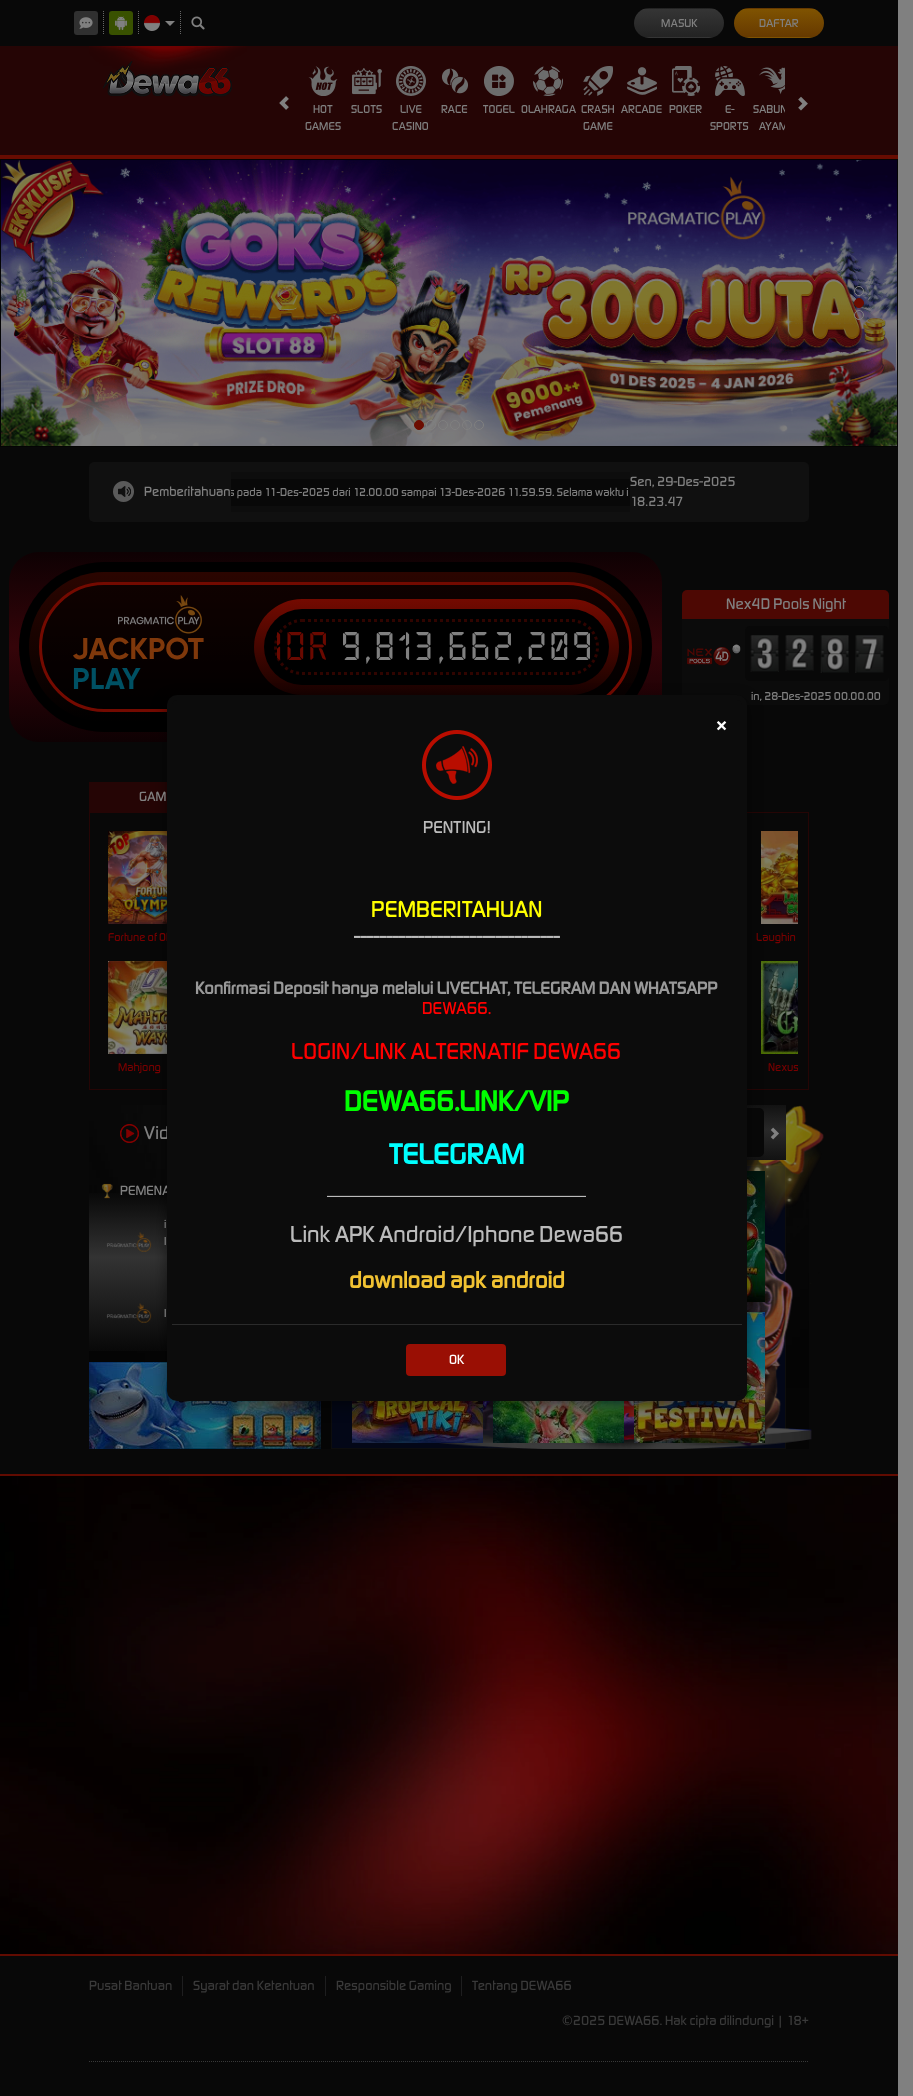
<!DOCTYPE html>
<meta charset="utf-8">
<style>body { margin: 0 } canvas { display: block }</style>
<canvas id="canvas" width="913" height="2096"></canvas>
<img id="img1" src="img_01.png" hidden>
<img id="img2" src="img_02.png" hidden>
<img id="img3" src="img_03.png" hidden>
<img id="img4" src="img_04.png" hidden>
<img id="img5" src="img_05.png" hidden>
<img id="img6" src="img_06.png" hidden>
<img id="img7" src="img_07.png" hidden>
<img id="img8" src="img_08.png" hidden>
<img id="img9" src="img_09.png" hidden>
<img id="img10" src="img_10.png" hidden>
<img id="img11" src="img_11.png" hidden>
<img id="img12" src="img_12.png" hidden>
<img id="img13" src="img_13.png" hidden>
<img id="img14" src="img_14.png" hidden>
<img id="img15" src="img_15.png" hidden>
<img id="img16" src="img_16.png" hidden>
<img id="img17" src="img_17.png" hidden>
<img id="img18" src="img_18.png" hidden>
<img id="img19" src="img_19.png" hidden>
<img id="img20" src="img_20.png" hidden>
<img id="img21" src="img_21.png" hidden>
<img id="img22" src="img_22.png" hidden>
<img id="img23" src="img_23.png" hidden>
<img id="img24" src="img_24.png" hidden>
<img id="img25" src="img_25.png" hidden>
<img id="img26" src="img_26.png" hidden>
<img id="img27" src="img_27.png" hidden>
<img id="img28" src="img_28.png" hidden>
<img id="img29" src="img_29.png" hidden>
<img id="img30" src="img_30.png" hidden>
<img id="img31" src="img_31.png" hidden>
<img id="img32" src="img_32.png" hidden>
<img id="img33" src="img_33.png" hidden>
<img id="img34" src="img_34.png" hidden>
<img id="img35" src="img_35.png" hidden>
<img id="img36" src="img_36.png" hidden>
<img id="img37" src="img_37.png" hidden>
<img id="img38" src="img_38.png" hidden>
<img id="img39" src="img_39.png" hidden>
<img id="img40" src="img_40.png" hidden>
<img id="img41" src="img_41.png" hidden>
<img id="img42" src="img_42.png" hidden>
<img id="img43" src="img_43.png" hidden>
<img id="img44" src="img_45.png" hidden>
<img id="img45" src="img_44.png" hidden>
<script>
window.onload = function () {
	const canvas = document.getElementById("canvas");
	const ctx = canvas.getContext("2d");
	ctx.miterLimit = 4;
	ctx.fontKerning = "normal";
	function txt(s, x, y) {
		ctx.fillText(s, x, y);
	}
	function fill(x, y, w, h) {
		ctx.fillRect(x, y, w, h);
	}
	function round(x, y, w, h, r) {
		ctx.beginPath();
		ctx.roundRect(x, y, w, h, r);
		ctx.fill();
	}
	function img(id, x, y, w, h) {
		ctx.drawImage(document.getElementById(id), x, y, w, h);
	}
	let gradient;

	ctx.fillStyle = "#808080";
	fill(0, 0, 913, 2096);
	ctx.fillStyle = "#080808";
	fill(0, 0, 898, 46);
	ctx.fillStyle = "#303030";
	round(74, 11, 24, 24, 3);
	img("img1", 79, 17, 14, 12);
	ctx.beginPath();
	ctx.moveTo(103.5, 11);
	ctx.lineTo(103.5, 35);
	ctx.strokeStyle = "#666666";
	ctx.setLineDash([1, 1]);
	ctx.stroke();
	ctx.fillStyle = "#395100";
	round(109, 11, 24, 24, 3);
	img("img2", 115, 16, 12, 14);
	ctx.beginPath();
	ctx.moveTo(138.5, 11);
	ctx.lineTo(138.5, 35);
	ctx.stroke();
	img("img3", 144, 15, 16, 16);
	ctx.fillStyle = "#808080";
	ctx.beginPath();
	ctx.moveTo(165, 21);
	ctx.lineTo(175, 21);
	ctx.lineTo(170, 26);
	ctx.closePath();
	ctx.fill();
	ctx.beginPath();
	ctx.moveTo(180.5, 11);
	ctx.lineTo(180.5, 35);
	ctx.stroke();
	img("img4", 191, 16, 14, 14);
	ctx.save();
	ctx.beginPath();
	ctx.roundRect(634, 8, 90, 30, 15);
	ctx.clip();
	gradient = ctx.createLinearGradient(679, -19, 679, 9);
	gradient.addColorStop(0, "#353535");
	gradient.addColorStop(1, "#232323");
	ctx.fillStyle = gradient;
	fill(644, 8, 70, 1);
	gradient = ctx.createLinearGradient(679, 9, 679, 37);
	gradient.addColorStop(0, "#353535");
	gradient.addColorStop(1, "#232323");
	ctx.fillStyle = gradient;
	fill(634, 9, 90, 28);
	gradient = ctx.createLinearGradient(679, 37, 679, 65);
	gradient.addColorStop(0, "#353535");
	gradient.addColorStop(1, "#232323");
	ctx.fillStyle = gradient;
	fill(644, 37, 70, 1);
	ctx.restore();
	ctx.save();
	ctx.beginPath();
	ctx.roundRect(734, 8, 90, 30, 15);
	ctx.clip();
	gradient = ctx.createLinearGradient(779, -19, 779, 9);
	gradient.addColorStop(0, "#7F5301");
	gradient.addColorStop(1, "#663900");
	ctx.fillStyle = gradient;
	fill(744, 8, 70, 1);
	gradient = ctx.createLinearGradient(779, 9, 779, 37);
	gradient.addColorStop(0, "#7F5301");
	gradient.addColorStop(1, "#663900");
	ctx.fillStyle = gradient;
	fill(734, 9, 90, 28);
	gradient = ctx.createLinearGradient(779, 37, 779, 65);
	gradient.addColorStop(0, "#7F5301");
	gradient.addColorStop(1, "#663900");
	ctx.fillStyle = gradient;
	fill(744, 37, 70, 1);
	ctx.restore();
	ctx.fillStyle = "#250505";
	fill(0, 46, 898, 109);
	ctx.fillStyle = "#670C01";
	fill(0, 155, 898, 4);
	img("img5", 89, 46, 158, 26);
	img("img6", 103, 61, 129, 36);
	img("img7", 279, 96, 10, 14);
	img("img8", 308, 66, 30, 30);
	img("img9", 352, 68, 30, 27);
	img("img10", 396, 66, 30, 30);
	img("img11", 441, 68, 28, 26);
	img("img12", 484, 66, 30, 30);
	img("img13", 533, 66, 30, 30);
	img("img14", 583, 66, 30, 30);
	img("img15", 627, 67, 30, 28);
	img("img16", 672, 66, 29, 30);
	img("img17", 715, 66, 30, 30);
	img("img18", 759, 67, 26, 28);
	img("img19", 798, 96, 10, 15);
	ctx.fillStyle = "#040404";
	fill(0, 159, 898, 288);
	img("img20", 1, 160, 896, 286);
	ctx.beginPath();
	ctx.arc(859, 291, 4.5, 0, Math.PI * 2);
	ctx.strokeStyle = "#808080";
	ctx.setLineDash([]);
	ctx.stroke();
	ctx.fillStyle = "#6C0D01";
	ctx.beginPath();
	ctx.arc(859, 303, 4.5, 0, Math.PI * 2);
	ctx.fill();
	ctx.strokeStyle = "#6C0D01";
	ctx.stroke();
	ctx.beginPath();
	ctx.arc(859, 315, 4.5, 0, Math.PI * 2);
	ctx.strokeStyle = "#808080";
	ctx.stroke();
	ctx.beginPath();
	ctx.arc(419, 425, 4.5, 0, Math.PI * 2);
	ctx.fill();
	ctx.strokeStyle = "#6C0D01";
	ctx.stroke();
	ctx.beginPath();
	ctx.arc(431, 425, 4.5, 0, Math.PI * 2);
	ctx.strokeStyle = "#808080";
	ctx.stroke();
	ctx.beginPath();
	ctx.arc(443, 425, 4.5, 0, Math.PI * 2);
	ctx.stroke();
	ctx.beginPath();
	ctx.arc(455, 425, 4.5, 0, Math.PI * 2);
	ctx.stroke();
	ctx.beginPath();
	ctx.arc(467, 425, 4.5, 0, Math.PI * 2);
	ctx.stroke();
	ctx.beginPath();
	ctx.arc(479, 425, 4.5, 0, Math.PI * 2);
	ctx.stroke();
	ctx.fillStyle = "#080808";
	fill(0, 447, 898, 1027);
	ctx.fillStyle = "#610B01";
	fill(0, 1474, 898, 2);
	ctx.fillStyle = "#101010";
	round(89, 462, 720, 60, 5);
	img("img21", 113, 481, 21, 21);
	ctx.fillStyle = "#0D0D0D";
	fill(231, 472, 399, 40);
	ctx.fillStyle = "#080808";
	fill(231, 479, 399, 27);
	gradient = ctx.createLinearGradient(336, 552, 336, 742);
	gradient.addColorStop(0, "#0E0103");
	gradient.addColorStop(0.5, "#350409");
	gradient.addColorStop(1, "#0E0103");
	ctx.fillStyle = gradient;
	round(9, 552, 653, 190, 30);
	ctx.fillStyle = "#000000";
	round(19, 562, 633, 170, 85);
	gradient = ctx.createLinearGradient(336, 572, 336, 722);
	gradient.addColorStop(0, "#2B0500");
	gradient.addColorStop(1, "#000000");
	ctx.fillStyle = gradient;
	round(29, 572, 613, 150, 75);
	ctx.fillStyle = "rgba(0, 0, 0, 0.6)";
	ctx.beginPath();
	ctx.roundRect(40.5, 583.5, 590, 127, 63.5);
	ctx.fill();
	ctx.strokeStyle = "#740A00";
	ctx.lineWidth = 3;
	ctx.stroke();
	img("img22", 118, 595, 84, 39);
	gradient = ctx.createLinearGradient(437, 599, 437, 695);
	gradient.addColorStop(0, "#740A00");
	gradient.addColorStop(1, "#170200");
	ctx.fillStyle = gradient;
	round(254, 599, 365, 96, 48);
	ctx.fillStyle = "#000000";
	round(264, 609, 345, 76, 38);
	ctx.beginPath();
	ctx.moveTo(302, 620.5);
	ctx.lineTo(571, 620.5);
	ctx.bezierCurveTo(585.5, 620.5, 597.5, 632.5, 597.5, 647);
	ctx.bezierCurveTo(597.5, 661.5, 585.5, 673.5, 571, 673.5);
	ctx.lineTo(302, 673.5);
	ctx.bezierCurveTo(287.5, 673.5, 275.5, 661.5, 275.5, 647);
	ctx.bezierCurveTo(275.5, 632.5, 287.5, 620.5, 302, 620.5);
	ctx.closePath();
	ctx.strokeStyle = "#300400";
	ctx.setLineDash([3, 3]);
	ctx.stroke();
	ctx.fillStyle = "#0B0B0B";
	round(682, 590, 207, 115, 5);
	ctx.fillStyle = "#4D0803";
	ctx.beginPath();
	ctx.roundRect(682, 590, 207, 29, [5, 5, 0, 0]);
	ctx.fill();
	img("img23", 687, 644, 54, 22);
	ctx.fillStyle = "#080808";
	round(745, 626, 144, 55, 5);
	img("img24", 750, 635, 29, 37);
	img("img25", 785, 635, 29, 36);
	img("img26", 820, 635, 29, 38);
	img("img27", 855, 635, 29, 38);
	ctx.fillStyle = "#250505";
	fill(89, 782, 78, 30);
	ctx.strokeStyle = "#250505";
	ctx.lineWidth = 1;
	ctx.setLineDash([]);
	ctx.strokeRect(89.5, 812.5, 719, 277);
	img("img28", 108, 831, 59, 93);
	img("img29", 108, 961, 59, 93);
	img("img30", 761, 831, 37, 93);
	img("img31", 761, 961, 37, 93);
	ctx.fillStyle = "#050505";
	fill(321, 1388, 488, 61);
	img("img32", 89, 1105, 720, 283);
	img("img33", 120, 1124, 19, 19);
	gradient = ctx.createLinearGradient(205, 1171, 205, 1351);
	gradient.addColorStop(0.12, "#080808");
	gradient.addColorStop(0.48, "#333333");
	gradient.addColorStop(1, "#080808");
	ctx.fillStyle = gradient;
	fill(89, 1193, 78, 158);
	img("img34", 101, 1183, 12, 16);
	img("img35", 106, 1232, 46, 20);
	img("img36", 106, 1303, 46, 20);
	img("img37", 89, 1362, 232, 87);
	ctx.strokeStyle = "#0D0D0D";
	ctx.strokeRect(331.5, 1165.5, 454, 283);
	ctx.fillStyle = "#030717";
	fill(332, 1166, 453, 282);
	img("img38", 438, 1105, 386, 344);
	img("img39", 747, 1171, 18, 131);
	img("img40", 352, 1401, 131, 42);
	img("img41", 493, 1401, 131, 42);
	img("img42", 634, 1312, 131, 131);
	gradient = ctx.createLinearGradient(559, 1105, 559, 1160);
	gradient.addColorStop(0, "#121212");
	gradient.addColorStop(0.46, "#292929");
	gradient.addColorStop(1, "#121212");
	ctx.fillStyle = gradient;
	fill(747, 1105, 39, 55);
	ctx.fillStyle = "#080808";
	round(628, 1108, 136, 49, 5);
	img("img43", 770, 1127, 9, 13);
	ctx.fillStyle = "rgba(0, 0, 0, 0.5)";
	ctx.filter = "blur(7.5px)";
	ctx.beginPath();
	ctx.roundRect(167, 700, 580, 706, 10);
	ctx.fill();
	ctx.filter = "none";
	img("img44", 0, 1476, 898, 478);
	ctx.fillStyle = "#080808";
	fill(0, 1956, 898, 140);
	ctx.fillStyle = "#610B01";
	fill(0, 1954, 898, 2);
	ctx.fillStyle = "#1E1E1F";
	fill(182, 1976, 1, 20);
	fill(325, 1976, 1, 20);
	fill(461, 1976, 1, 20);
	ctx.beginPath();
	ctx.moveTo(89, 2061.5);
	ctx.lineTo(809, 2061.5);
	ctx.strokeStyle = "#393939";
	ctx.setLineDash([1, 1]);
	ctx.stroke();
	ctx.font = "500 12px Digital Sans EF";
	ctx.fillStyle = "#808080";
	txt("MASUK", 661, 27);
	txt("DAFTAR", 759, 27);
	txt("HOT", 313, 113);
	txt("GAMES", 305, 130);
	txt("SLOTS", 351, 113);
	txt("LIVE", 400, 113);
	txt("CASINO", 392, 130);
	txt("RACE", 441, 113);
	txt("TOGEL", 483, 113);
	txt("OLAHRAGA", 521, 113);
	txt("CRASH", 581, 113);
	txt("GAME", 583, 130);
	txt("ARCADE", 621, 113);
	txt("POKER", 669, 113);
	txt("E-", 725, 113);
	txt("SPORTS", 710, 130);
	ctx.save();
	ctx.beginPath();
	ctx.rect(301, 46, 484, 109);
	ctx.clip();
	txt("SABUN", 753, 113);
	txt("AYAM", 759, 130);
	ctx.restore();
	ctx.font = "500 14px Digital Sans EF";
	txt("Pemberitahuan", 144, 496);
	ctx.save();
	ctx.beginPath();
	ctx.rect(231, 479, 399, 27);
	ctx.clip();
	ctx.font = "500 12px Digital Sans EF";
	txt("s pada 11-Des-2025 dari 12.00.00 sampai 13-Des-2026 11.59.59. Selama waktu i", 229, 496);
	ctx.restore();
	txt("Sen, 29-Des-2025", 630, 486);
	txt("18.23.47", 630, 506);
	ctx.font = "bold 30px Gilroy";
	ctx.fillStyle = "#7F380B";
	txt("JACKPOT", 72, 659);
	ctx.fillStyle = "#005063";
	txt("PLAY", 72, 689);
	ctx.letterSpacing = "5px";
	ctx.font = "40px 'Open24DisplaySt'";
	ctx.fillStyle = "#6A0900";
	txt("IDR", 277, 660);
	ctx.fillStyle = "#808080";
	txt("9,813,662,209", 343, 660);
	ctx.letterSpacing = "0px";
	ctx.font = "500 16px Digital Sans EF";
	txt("Nex4D Pools Night", 726, 609);
	ctx.font = "500 12px Digital Sans EF";
	txt("in, 28-Des-2025 00.00.00", 751, 700);
	ctx.font = "500 14px Digital Sans EF";
	txt("GAM", 139, 801);
	ctx.fillStyle = "#745148";
	txt("M", 152, 882);
	ctx.font = "500 12px Digital Sans EF";
	ctx.fillStyle = "#770000";
	txt("Fortune of Ol", 108, 941);
	txt("Mahjong", 118, 1071);
	txt("Laughin", 756, 941);
	ctx.save();
	ctx.beginPath();
	ctx.rect(756, 1059, 42, 17);
	ctx.clip();
	txt("Nexus", 768, 1071);
	ctx.restore();
	ctx.font = "500 19px Digital Sans EF";
	ctx.fillStyle = "#808080";
	txt("Vid", 144, 1139);
	ctx.font = "500 14px Digital Sans EF";
	txt("PEMENA", 120, 1195);
	ctx.font = "500 12px Digital Sans EF";
	txt("i", 164, 1228);
	txt("I", 164, 1245);
	txt("I", 164, 1317);
	ctx.fillStyle = "#0C0C0C";
	ctx.beginPath();
	ctx.roundRect(169.5, 697.5, 575, 701, 7.5);
	ctx.fill();
	ctx.strokeStyle = "#0C0C0C";
	ctx.lineWidth = 5;
	ctx.setLineDash([]);
	ctx.stroke();
	ctx.font = "bold 21px Digital Sans EF";
	ctx.fillStyle = "#FFFFFF";
	txt("×", 716, 733);
	img("img45", 422, 730, 70, 70);
	ctx.font = "500 18px Digital Sans EF";
	ctx.fillStyle = "#BBBBBB";
	txt("PENTING!", 423, 833);
	ctx.font = "500 24px Digital Sans EF";
	ctx.fillStyle = "#FFFF00";
	txt("PEMBERITAHUAN", 371, 917);
	ctx.fillStyle = "#BBBBBB";
	txt("--------------------------------", 354, 944);
	ctx.font = "bold 18px Digital Sans EF";
	ctx.fillStyle = "#999999";
	txt("Konfirmasi Deposit hanya melalui LIVECHAT, TELEGRAM DAN WHATSAPP", 195, 994);
	ctx.font = "500 18px Digital Sans EF";
	ctx.fillStyle = "#FF0000";
	txt("DEWA66.", 422, 1014);
	ctx.font = "500 24px Digital Sans EF";
	txt("LOGIN/LINK ALTERNATIF DEWA66", 291, 1059);
	ctx.font = "bold 30px Digital Sans EF";
	ctx.fillStyle = "#00FF00";
	txt("DEWA66.LINK/VIP", 344, 1111);
	ctx.fillStyle = "#00FFFF";
	txt("TELEGRAM", 389, 1164);
	ctx.font = "500 14px Digital Sans EF";
	ctx.fillStyle = "#BBBBBB";
	txt("_____________________________________", 327, 1195);
	ctx.font = "500 24px Digital Sans EF";
	txt("Link APK Android/Iphone Dewa66", 290, 1242);
	ctx.font = "bold 24px Digital Sans EF";
	ctx.fillStyle = "#F1C232";
	txt("download apk android", 349, 1288);
	ctx.fillStyle = "#2B2B2B";
	fill(172, 1324, 570, 1);
	ctx.fillStyle = "#9A0F04";
	round(406, 1344, 100, 32, 4);
	ctx.font = "500 14px Digital Sans EF";
	ctx.fillStyle = "#FFFFFF";
	txt("OK", 449, 1364);
	ctx.fillStyle = "#3A3A3A";
	txt("Pusat Bantuan", 89, 1990);
	txt("Syarat dan Ketentuan", 193, 1990);
	txt("Responsible Gaming", 336, 1990);
	txt("Tentang DEWA66", 472, 1990);
	txt("©2025 DEWA66. Hak cipta dilindungi | 18+", 562, 2025);
};
</script>
